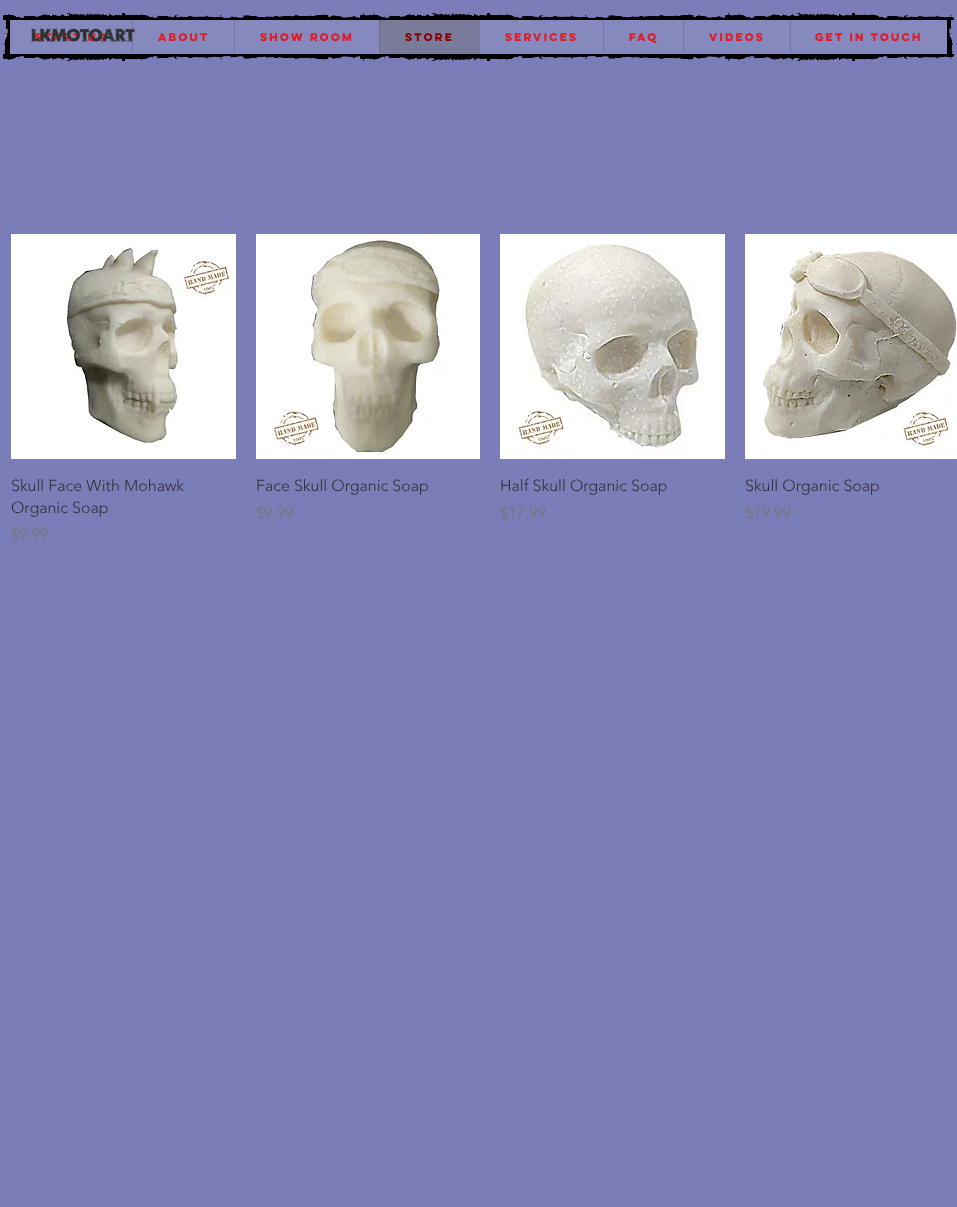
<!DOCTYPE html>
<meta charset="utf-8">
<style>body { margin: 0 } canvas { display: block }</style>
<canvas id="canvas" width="957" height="1207"></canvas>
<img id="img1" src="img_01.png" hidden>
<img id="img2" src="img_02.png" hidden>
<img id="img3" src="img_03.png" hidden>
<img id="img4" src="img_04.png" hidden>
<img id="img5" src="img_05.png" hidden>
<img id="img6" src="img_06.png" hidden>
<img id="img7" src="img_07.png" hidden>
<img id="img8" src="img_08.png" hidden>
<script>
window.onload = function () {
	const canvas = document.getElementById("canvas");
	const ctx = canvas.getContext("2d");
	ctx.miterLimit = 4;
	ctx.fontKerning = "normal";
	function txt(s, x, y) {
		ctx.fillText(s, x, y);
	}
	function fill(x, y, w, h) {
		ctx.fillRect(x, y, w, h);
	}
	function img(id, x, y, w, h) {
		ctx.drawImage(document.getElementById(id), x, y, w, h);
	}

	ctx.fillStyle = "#7A7DB7";
	fill(0, 0, 957, 1207);
	img("img1", 3, 13, 951, 7);
	img("img2", 3, 20, 7, 34);
	ctx.fillStyle = "#8689BD";
	fill(10, 20, 937, 34);
	ctx.fillStyle = "#7577A1";
	fill(132, 20, 1, 34);
	fill(234, 20, 1, 34);
	ctx.fillStyle = "#7A7B9B";
	fill(380, 20, 99, 34);
	ctx.fillStyle = "#6B6C86";
	fill(379, 20, 1, 34);
	ctx.fillStyle = "#7577A1";
	fill(479, 20, 1, 34);
	fill(603, 20, 1, 34);
	fill(683, 20, 1, 34);
	fill(790, 20, 1, 34);
	img("img3", 947, 20, 7, 34);
	img("img4", 3, 54, 951, 7);
	img("img5", 11, 234, 225, 225);
	img("img6", 256, 234, 224, 225);
	img("img7", 500, 234, 225, 225);
	img("img8", 745, 234, 212, 225);
	ctx.font = "bold 10px 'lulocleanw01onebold'";
	ctx.fillStyle = "#E21C21";
	txt("Start Up", 35, 41);
	ctx.font = "17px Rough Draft";
	ctx.fillStyle = "#303131";
	txt("LKMOTOART", 31, 41);
	ctx.font = "bold 10px 'lulocleanw01onebold'";
	ctx.fillStyle = "#E21C21";
	txt("About", 158, 41);
	txt("Show Room", 260, 41);
	ctx.fillStyle = "#8B0000";
	txt("Store", 405, 41);
	ctx.fillStyle = "#E21C21";
	txt("Services", 505, 41);
	txt("FAQ", 629, 41);
	txt("Videos", 709, 41);
	txt("Get in Touch", 815, 41);
	ctx.font = "300 16px 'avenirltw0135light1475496'";
	ctx.fillStyle = "#303131";
	txt("Skull Face With Mohawk", 11, 491);
	txt("Organic Soap", 11, 513);
	ctx.fillStyle = "#757575";
	txt("$9.99", 11, 540);
	ctx.fillStyle = "#303131";
	txt("Face Skull Organic Soap", 256, 491);
	ctx.fillStyle = "#757575";
	txt("$9.99", 256, 518);
	ctx.fillStyle = "#303131";
	txt("Half Skull Organic Soap", 500, 491);
	ctx.fillStyle = "#757575";
	txt("$17.99", 500, 518);
	ctx.fillStyle = "#303131";
	txt("Skull Organic Soap", 745, 491);
	ctx.fillStyle = "#757575";
	txt("$19.99", 745, 518);
};
</script>
